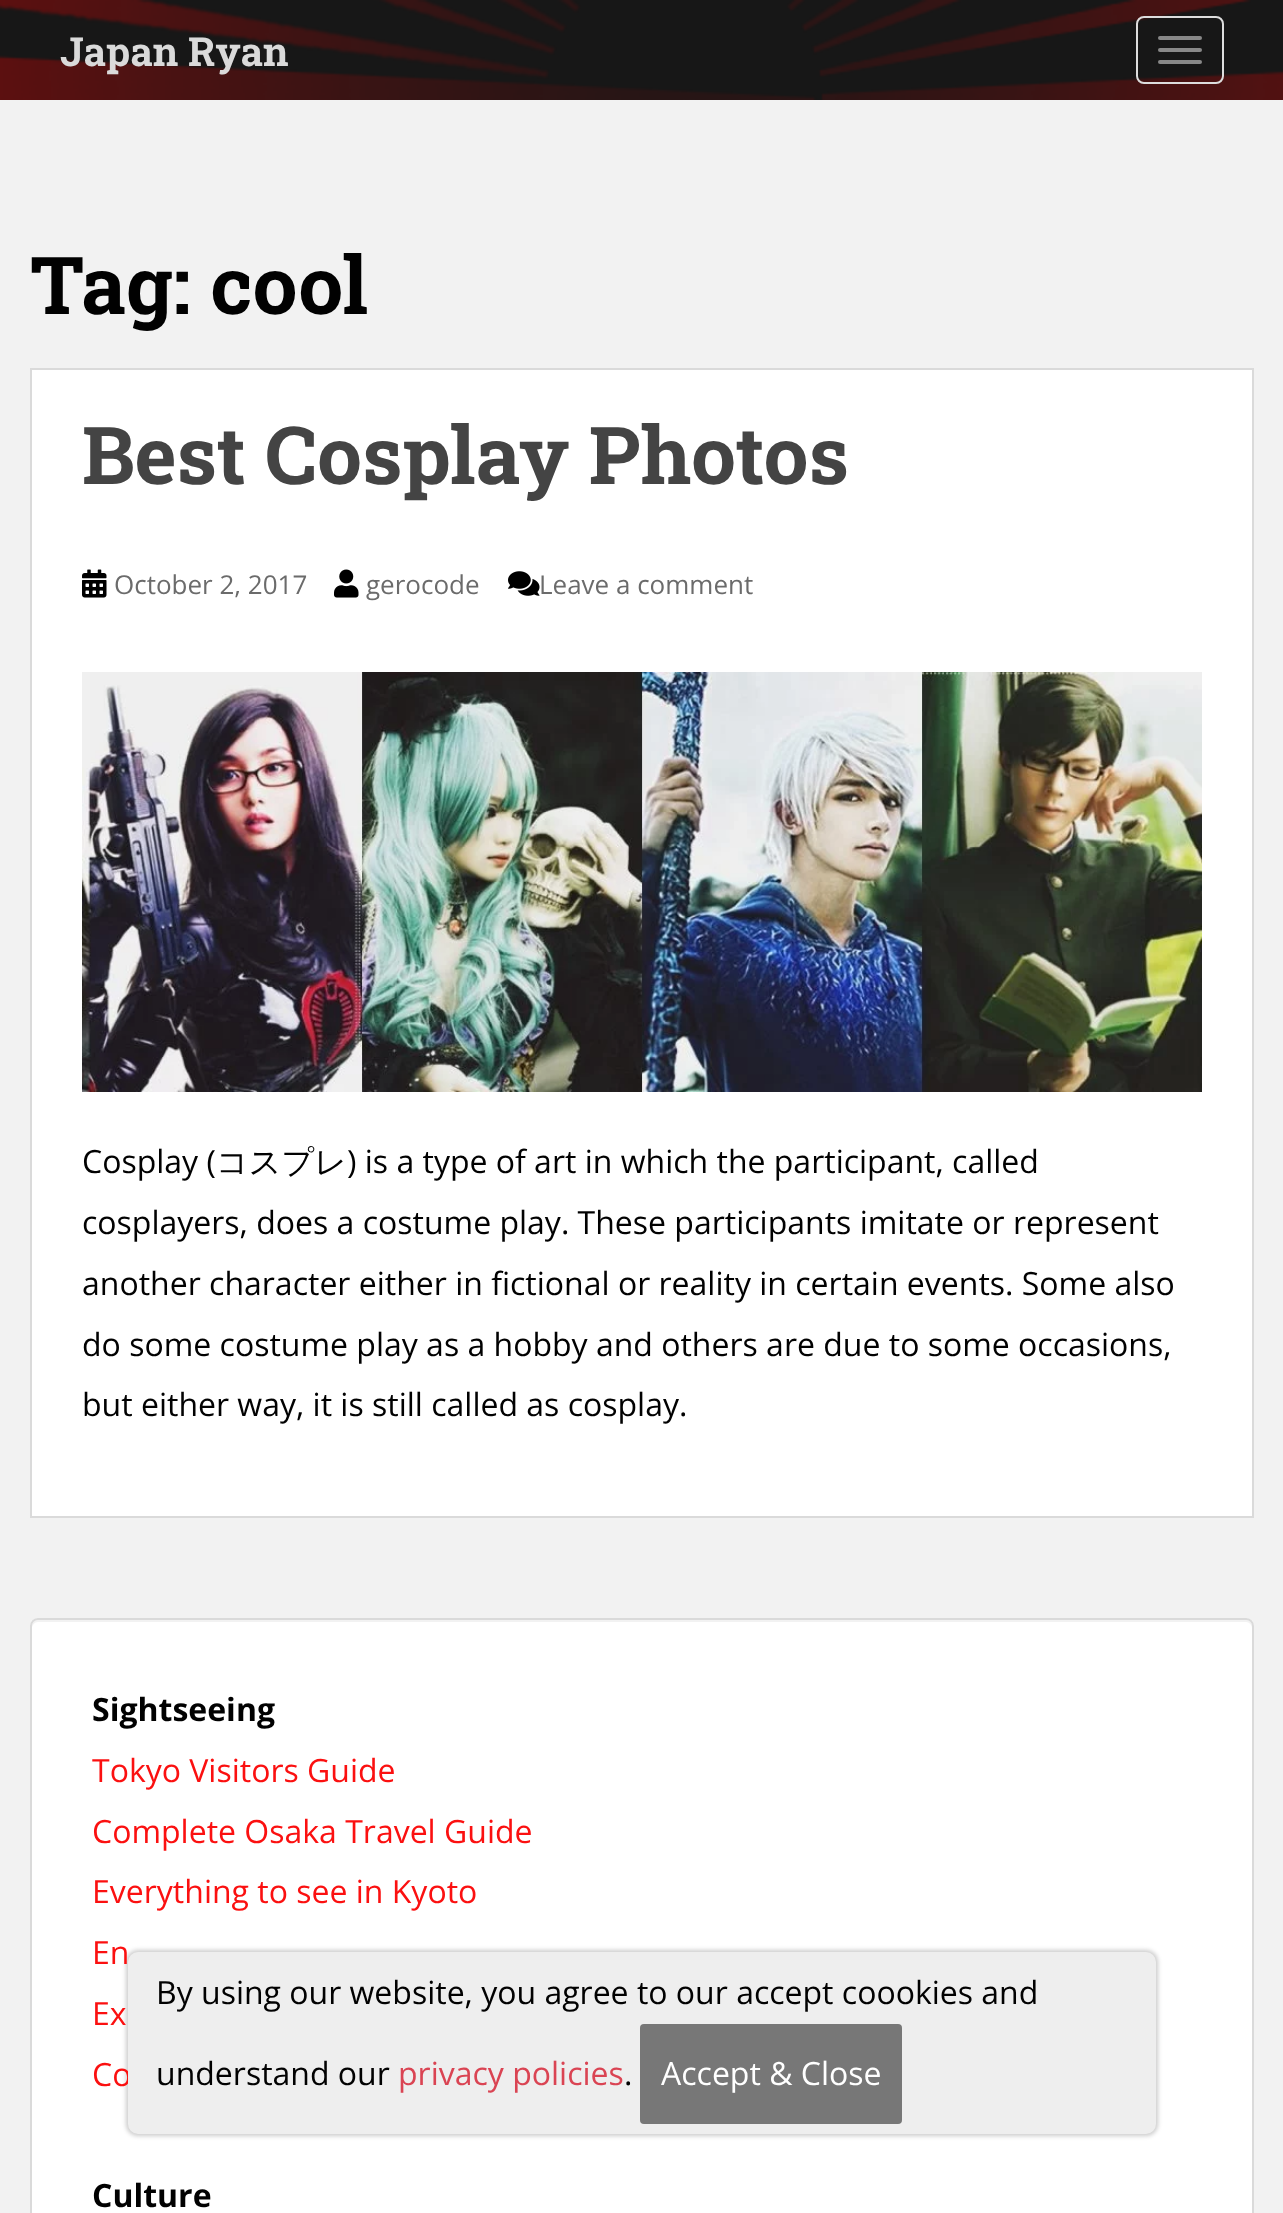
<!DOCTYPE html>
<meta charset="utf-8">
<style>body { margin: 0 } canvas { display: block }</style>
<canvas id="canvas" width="1283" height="2213"></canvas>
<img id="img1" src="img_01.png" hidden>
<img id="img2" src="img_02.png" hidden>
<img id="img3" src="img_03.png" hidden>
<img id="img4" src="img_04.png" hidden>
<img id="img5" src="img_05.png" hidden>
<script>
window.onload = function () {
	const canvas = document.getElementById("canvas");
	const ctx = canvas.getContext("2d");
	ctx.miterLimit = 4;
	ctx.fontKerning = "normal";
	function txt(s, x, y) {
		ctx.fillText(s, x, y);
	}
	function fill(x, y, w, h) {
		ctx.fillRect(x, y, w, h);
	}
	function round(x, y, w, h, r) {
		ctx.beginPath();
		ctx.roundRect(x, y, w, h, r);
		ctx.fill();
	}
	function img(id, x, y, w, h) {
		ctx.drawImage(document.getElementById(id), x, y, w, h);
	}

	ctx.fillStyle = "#F2F2F2";
	fill(0, 0, 1283, 2213);
	img("img1", 0, 0, 1283, 100);
	ctx.beginPath();
	ctx.roundRect(1137, 17, 86, 66, 7);
	ctx.strokeStyle = "#DDDDDD";
	ctx.lineWidth = 2;
	ctx.stroke();
	ctx.fillStyle = "#888888";
	round(1158, 36, 44, 4, 2);
	round(1158, 48, 44, 4, 2);
	round(1158, 60, 44, 4, 2);
	ctx.fillStyle = "#FFFFFF";
	ctx.beginPath();
	ctx.rect(31, 369, 1222, 1148);
	ctx.fill();
	ctx.strokeStyle = "#DADADA";
	ctx.stroke();
	img("img2", 82, 569, 25, 29);
	img("img3", 334, 569, 25, 29);
	img("img4", 508, 571, 32, 25);
	img("img5", 82, 672, 1120, 420);
	round(30, 1618, 1224, 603, 8);
	ctx.fillStyle = "#F2F2F2";
	ctx.beginPath();
	ctx.moveTo(38, 1622);
	ctx.lineTo(1246, 1622);
	ctx.bezierCurveTo(1249, 1622, 1252, 1625, 1252, 1628);
	ctx.lineTo(1252, 1626);
	ctx.bezierCurveTo(1252, 1623, 1249, 1620, 1246, 1620);
	ctx.lineTo(38, 1620);
	ctx.bezierCurveTo(35, 1620, 32, 1623, 32, 1626);
	ctx.lineTo(32, 1628);
	ctx.bezierCurveTo(32, 1625, 35, 1622, 38, 1622);
	ctx.closePath();
	ctx.fill();
	ctx.beginPath();
	ctx.roundRect(31, 1619, 1222, 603, 7);
	ctx.stroke();
	ctx.fillStyle = "rgba(0, 0, 0, 0.2)";
	ctx.filter = "blur(2px)";
	ctx.beginPath();
	ctx.roundRect(126, 1950, 1032, 186, 12);
	ctx.fill();
	ctx.filter = "none";
	ctx.font = "bold 40px Roboto Slab";
	ctx.fillStyle = "#DADADA";
	txt("Japan Ryan", 60, 66);
	ctx.font = "bold 80px Roboto Slab";
	ctx.fillStyle = "#010101";
	txt("Tag: cool", 30, 314);
	ctx.fillStyle = "#444444";
	txt("Best Cosplay Photos", 82, 484);
	ctx.font = "26px Open Sans";
	ctx.fillStyle = "#6B6B6B";
	txt("October 2, 2017", 114, 594);
	txt("gerocode", 366, 594);
	txt("Leave a comment", 539, 594);
	ctx.font = "32px Open Sans";
	ctx.fillStyle = "#010101";
	txt("Cosplay (", 82, 1173);
	ctx.font = "500 32px WenQuanYi Zen Hei";
	txt("コスプレ", 216, 1173);
	ctx.font = "32px Open Sans";
	txt(") is a type of art in which the participant, called", 347, 1173);
	txt("cosplayers, does a costume play. These participants imitate or represent", 82, 1234);
	txt("another character either in fictional or reality in certain events. Some also", 82, 1295);
	txt("do some costume play as a hobby and others are due to some occasions,", 82, 1356);
	txt("but either way, it is still called as cosplay.", 82, 1416);
	ctx.font = "bold 32px Open Sans";
	txt("Sightseeing", 92, 1721);
	ctx.font = "32px Open Sans";
	ctx.fillStyle = "#FB1010";
	txt("Tokyo Visitors Guide", 92, 1782);
	txt("Complete Osaka Travel Guide", 92, 1843);
	txt("Everything to see in Kyoto", 92, 1903);
	txt("En", 92, 1964);
	txt("Ex", 92, 2025);
	txt("Co", 92, 2086);
	ctx.font = "bold 32px Open Sans";
	ctx.fillStyle = "#010101";
	txt("Culture", 92, 2207);
	ctx.fillStyle = "#EEEEEE";
	round(128, 1952, 1028, 182, 10);
	ctx.font = "32px Open Sans";
	ctx.fillStyle = "#010101";
	txt("By using our website, you agree to our accept coookies and", 156, 2004);
	txt("understand our", 156, 2085);
	ctx.fillStyle = "#DA4453";
	txt("privacy policies", 398, 2085);
	ctx.fillStyle = "#010101";
	txt(".", 624, 2085);
	ctx.fillStyle = "#777777";
	round(640, 2024, 262, 100, 4);
	ctx.fillStyle = "#FFFFFF";
	txt("Accept & Close", 661, 2085);
};
</script>
